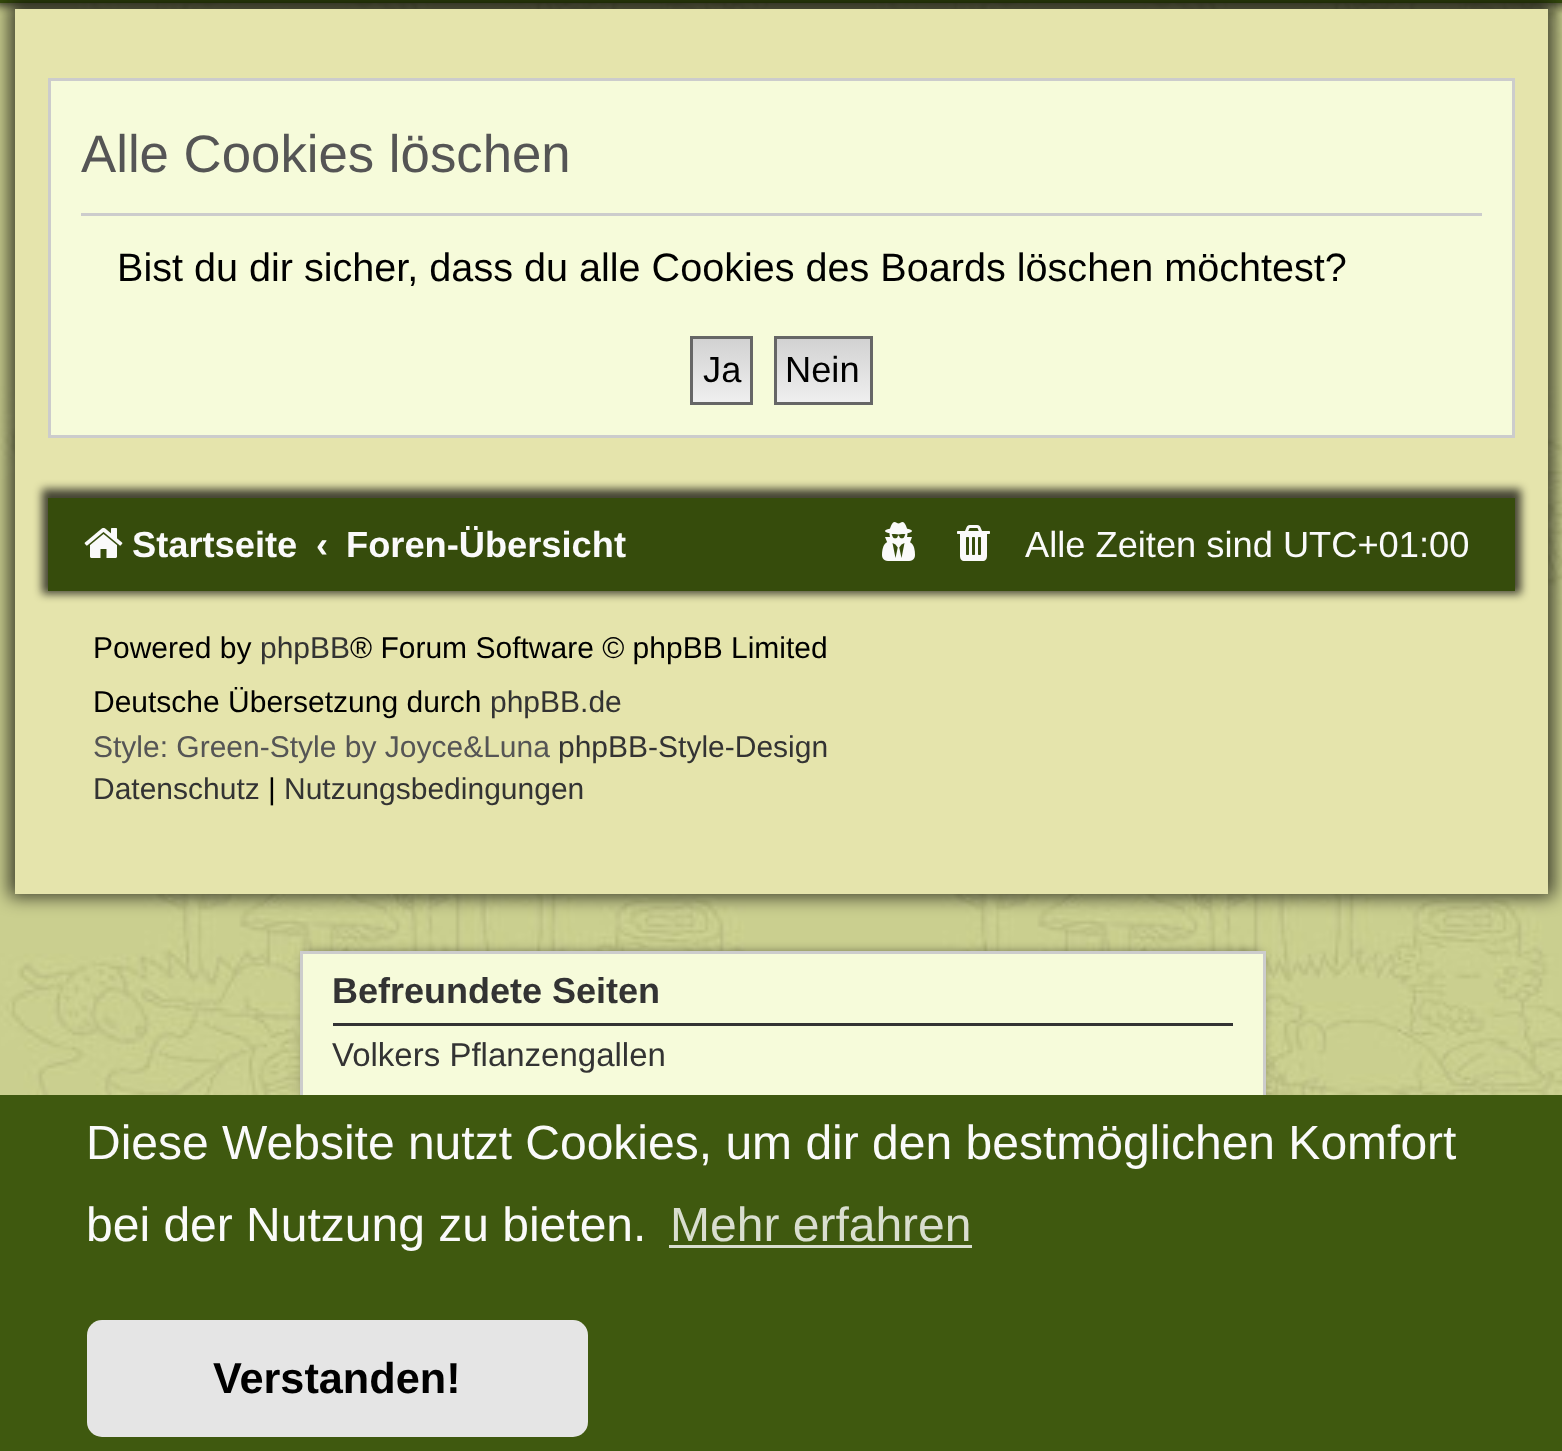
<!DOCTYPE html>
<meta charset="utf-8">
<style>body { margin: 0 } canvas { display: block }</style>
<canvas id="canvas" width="1562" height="1451"></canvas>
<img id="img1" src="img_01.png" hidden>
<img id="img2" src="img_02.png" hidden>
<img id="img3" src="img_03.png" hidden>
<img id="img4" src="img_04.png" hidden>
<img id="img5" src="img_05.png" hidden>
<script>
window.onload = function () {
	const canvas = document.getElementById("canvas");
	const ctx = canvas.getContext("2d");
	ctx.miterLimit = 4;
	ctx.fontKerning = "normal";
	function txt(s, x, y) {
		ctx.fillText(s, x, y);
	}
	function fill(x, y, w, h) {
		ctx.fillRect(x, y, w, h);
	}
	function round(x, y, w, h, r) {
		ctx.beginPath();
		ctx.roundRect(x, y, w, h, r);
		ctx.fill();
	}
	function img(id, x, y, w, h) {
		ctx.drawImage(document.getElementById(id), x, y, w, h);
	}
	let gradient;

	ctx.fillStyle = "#FFFFFF";
	fill(0, 0, 1562, 1451);
	img("img1", 0, 894, 1562, 201);
	img("img2", 0, 3, 1562, 891);
	ctx.fillStyle = "rgba(2, 2, 2, 0.7)";
	ctx.filter = "blur(4.5px)";
	ctx.beginPath();
	ctx.rect(-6, -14, 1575, 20);
	ctx.fill();
	ctx.filter = "none";
	ctx.fillStyle = "#364C0C";
	fill(0, 0, 1562, 3);
	ctx.fillStyle = "rgba(2, 2, 2, 0.7)";
	ctx.filter = "blur(9px)";
	ctx.beginPath();
	ctx.rect(9, 0, 1545, 897);
	ctx.fill();
	ctx.filter = "none";
	ctx.fillStyle = "#E5E4AC";
	fill(15, 9, 1533, 885);
	ctx.fillStyle = "#F6FBDA";
	ctx.beginPath();
	ctx.rect(49.5, 79.5, 1464, 357);
	ctx.fill();
	ctx.strokeStyle = "#CCCCCC";
	ctx.lineWidth = 3;
	ctx.stroke();
	ctx.fillStyle = "#CCCCCC";
	fill(81, 213, 1401, 3);
	gradient = ctx.createLinearGradient(722, 339, 722, 402);
	gradient.addColorStop(0, "#D2D2D2");
	gradient.addColorStop(1, "#EFEFEF");
	ctx.fillStyle = gradient;
	fill(693, 339, 57, 63);
	ctx.strokeStyle = "#666666";
	ctx.strokeRect(691.5, 337.5, 60, 66);
	gradient = ctx.createLinearGradient(824, 339, 824, 402);
	gradient.addColorStop(0, "#D2D2D2");
	gradient.addColorStop(1, "#EFEFEF");
	ctx.fillStyle = gradient;
	fill(777, 339, 93, 63);
	ctx.strokeRect(775.5, 337.5, 96, 66);
	ctx.fillStyle = "rgba(2, 2, 2, 0.7)";
	ctx.filter = "blur(4.5px)";
	ctx.beginPath();
	ctx.rect(42, 489, 1479, 105);
	ctx.fill();
	ctx.filter = "none";
	ctx.fillStyle = "#364C0C";
	fill(48, 498, 1467, 93);
	img("img3", 84, 527, 39, 31);
	img("img4", 882, 522, 33, 39);
	img("img5", 957, 525, 33, 36);
	ctx.fillStyle = "rgba(2, 2, 2, 0.7)";
	ctx.filter = "blur(6px)";
	ctx.beginPath();
	ctx.rect(306, 954, 954, 234);
	ctx.fill();
	ctx.filter = "none";
	ctx.fillStyle = "#F6FBDA";
	fill(303, 954, 960, 141);
	ctx.strokeStyle = "#CCCCCC";
	ctx.strokeRect(301.5, 952.5, 963, 243);
	ctx.fillStyle = "#333333";
	fill(333, 1023, 900, 3);
	ctx.fillStyle = "#3F590F";
	fill(0, 1095, 1562, 356);
	ctx.fillStyle = "#D9DECF";
	fill(669, 1245, 303, 3);
	ctx.fillStyle = "#E5E5E5";
	round(87, 1320, 501, 117, 15);
	ctx.font = "52.75px Liberation Sans";
	ctx.fillStyle = "#555555";
	txt("Alle Cookies löschen", 81, 172);
	ctx.font = "39.6px Liberation Sans";
	ctx.fillStyle = "#000000";
	txt("Bist du dir sicher, dass du alle Cookies des Boards löschen möchtest?", 117, 281);
	ctx.font = "36.25px Liberation Sans";
	txt("Ja", 703, 382);
	txt("Nein", 785, 382);
	ctx.font = "bold 36.25px Liberation Sans";
	ctx.fillStyle = "#FAFAFA";
	txt("Startseite", 132, 557);
	txt("‹", 316, 557);
	txt("Foren-Übersicht", 346, 557);
	ctx.font = "36.25px Liberation Sans";
	txt("Alle Zeiten sind UTC+01:00", 1025, 557);
	ctx.font = "30px Liberation Sans";
	ctx.fillStyle = "#000000";
	txt("Powered by", 93, 658);
	ctx.fillStyle = "#333333";
	txt("phpBB", 260, 658);
	ctx.fillStyle = "#000000";
	txt("® Forum Software © phpBB Limited", 350, 658);
	txt("Deutsche Übersetzung durch", 93, 712);
	ctx.fillStyle = "#333333";
	txt("phpBB.de", 490, 712);
	ctx.fillStyle = "#555555";
	txt("Style: Green-Style by Joyce&Luna", 93, 757);
	ctx.fillStyle = "#333333";
	txt("phpBB-Style-Design", 558, 757);
	txt("Datenschutz", 93, 799);
	ctx.fillStyle = "#000000";
	txt("|", 268, 799);
	ctx.fillStyle = "#333333";
	txt("Nutzungsbedingungen", 284, 799);
	ctx.font = "bold 36px Liberation Sans";
	txt("Befreundete Seiten", 332, 1003);
	ctx.font = "33px Liberation Sans";
	txt("Volkers Pflanzengallen", 332, 1066);
	ctx.font = "48px Liberation Sans";
	ctx.fillStyle = "#FAFAFA";
	txt("Diese Website nutzt Cookies, um dir den bestmöglichen Komfort", 86, 1159);
	txt("bei der Nutzung zu bieten.", 86, 1241);
	ctx.fillStyle = "#D9DECF";
	txt("Mehr erfahren", 670, 1241);
	ctx.font = "bold 43.25px Liberation Sans";
	ctx.fillStyle = "#000000";
	txt("Verstanden!", 213, 1393);
};
</script>
